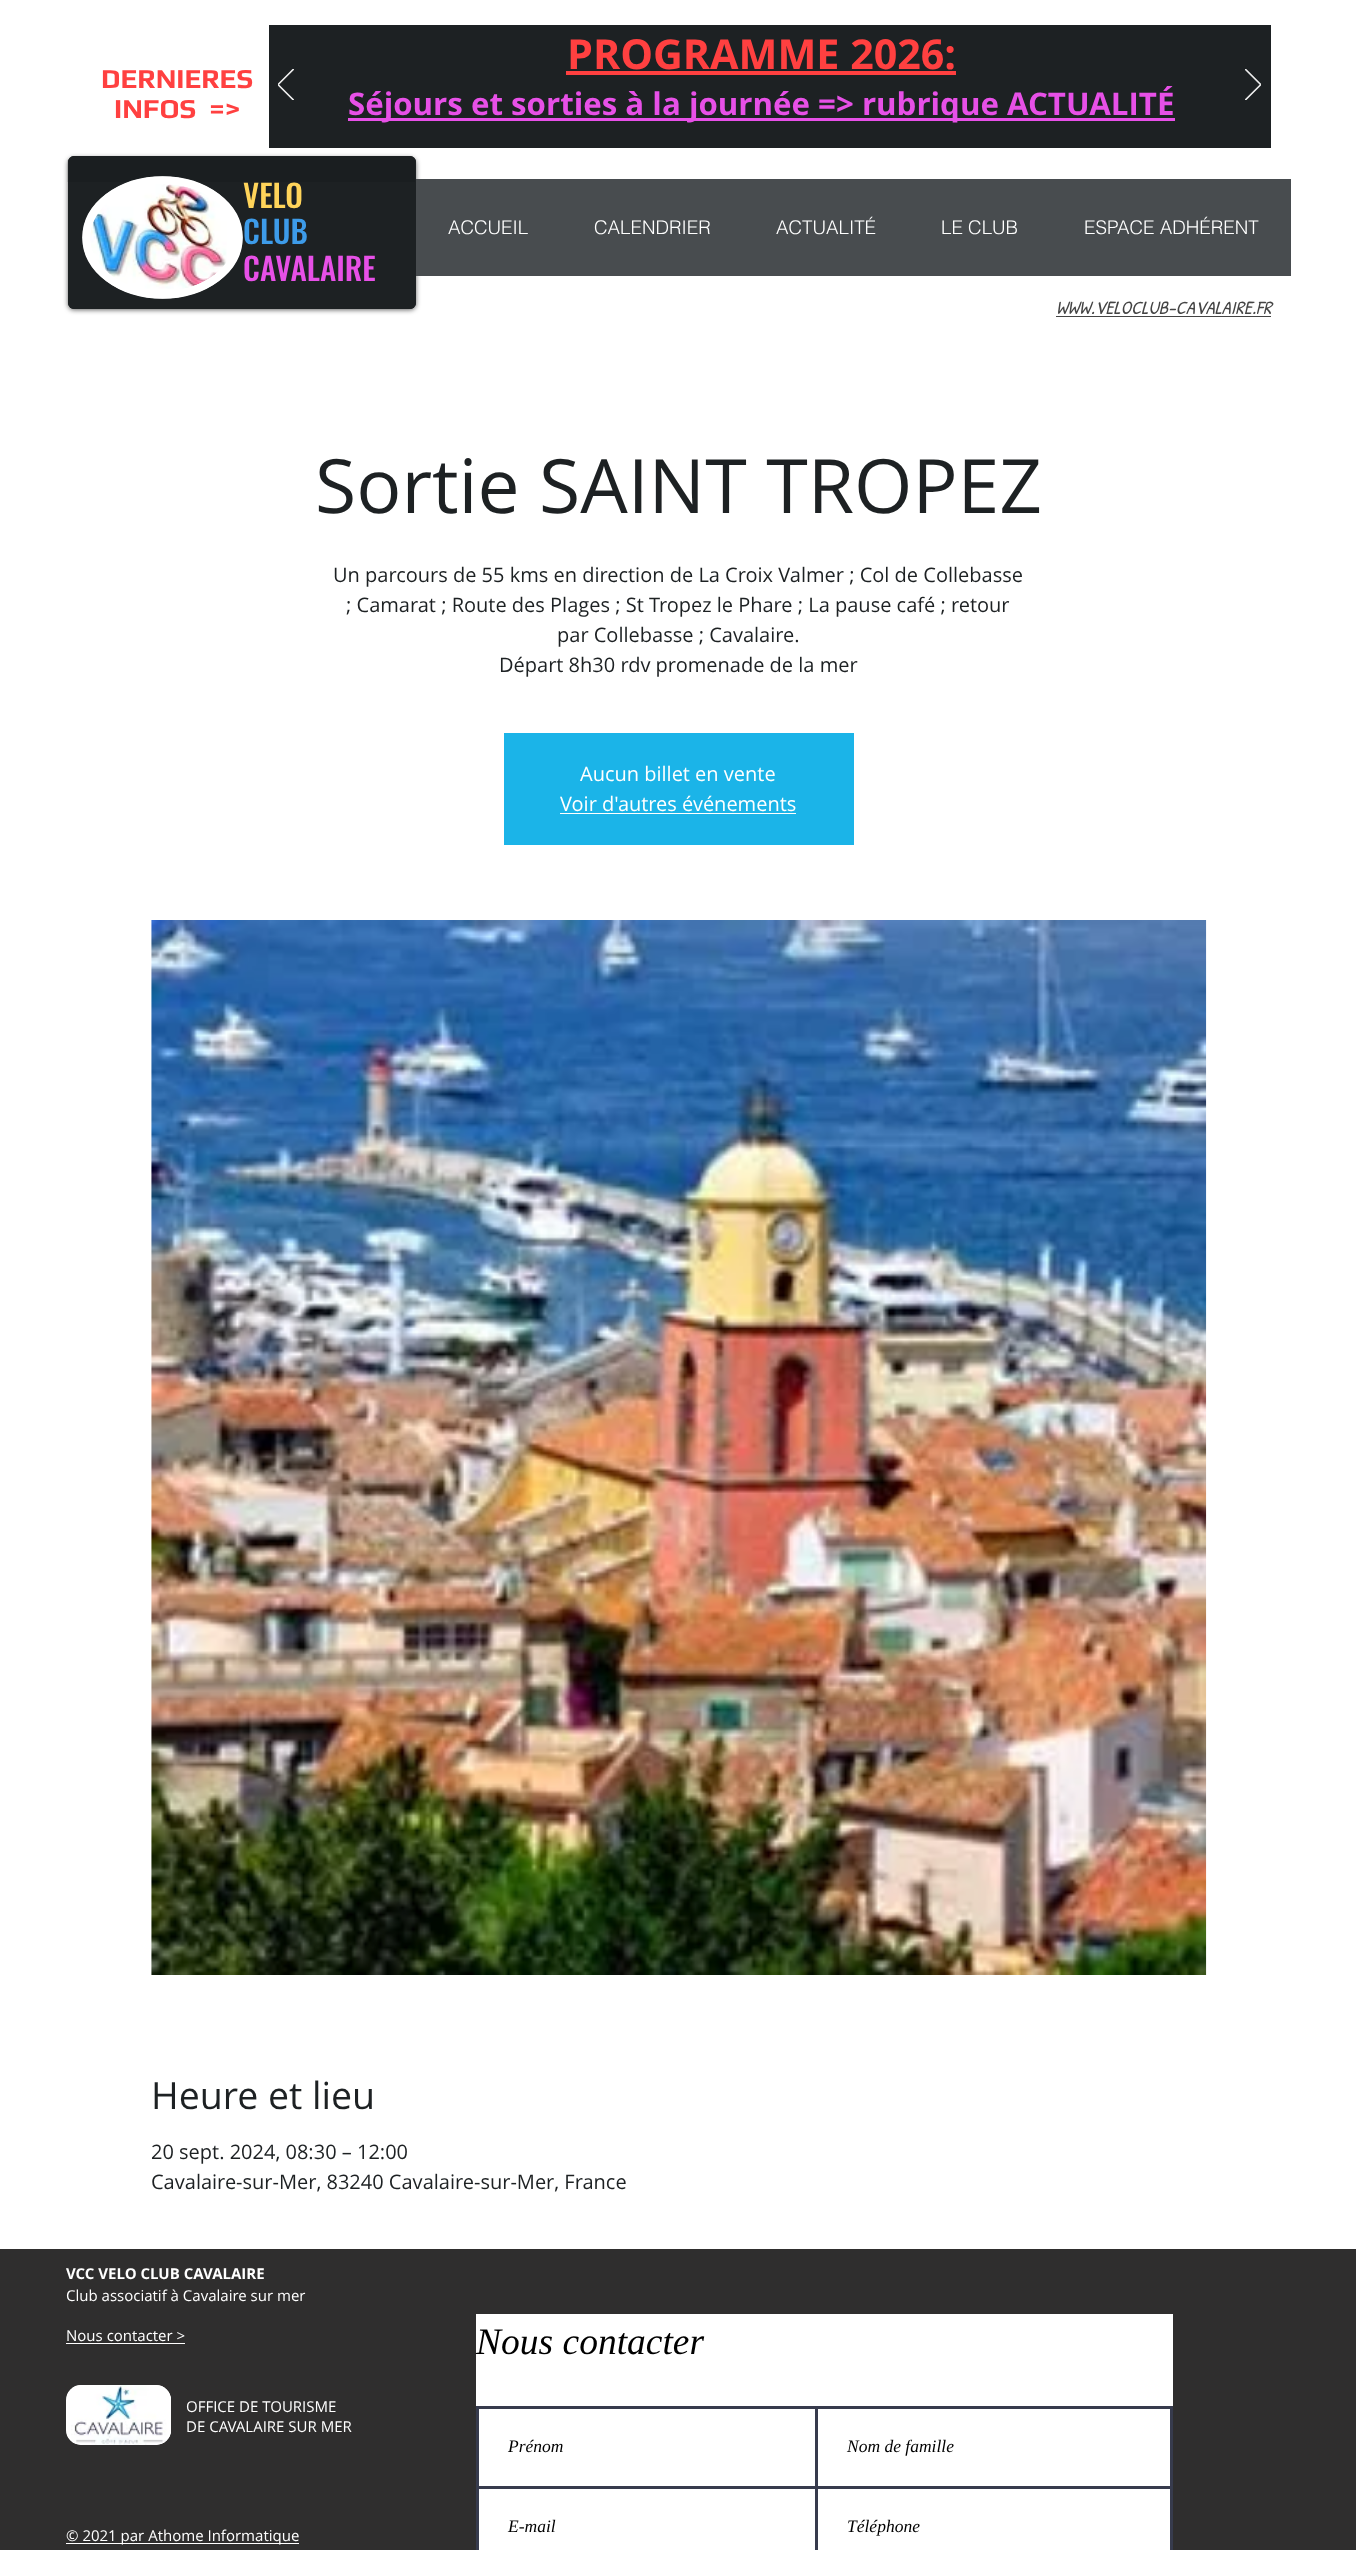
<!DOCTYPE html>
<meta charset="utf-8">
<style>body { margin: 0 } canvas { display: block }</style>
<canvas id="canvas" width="1356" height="2550"></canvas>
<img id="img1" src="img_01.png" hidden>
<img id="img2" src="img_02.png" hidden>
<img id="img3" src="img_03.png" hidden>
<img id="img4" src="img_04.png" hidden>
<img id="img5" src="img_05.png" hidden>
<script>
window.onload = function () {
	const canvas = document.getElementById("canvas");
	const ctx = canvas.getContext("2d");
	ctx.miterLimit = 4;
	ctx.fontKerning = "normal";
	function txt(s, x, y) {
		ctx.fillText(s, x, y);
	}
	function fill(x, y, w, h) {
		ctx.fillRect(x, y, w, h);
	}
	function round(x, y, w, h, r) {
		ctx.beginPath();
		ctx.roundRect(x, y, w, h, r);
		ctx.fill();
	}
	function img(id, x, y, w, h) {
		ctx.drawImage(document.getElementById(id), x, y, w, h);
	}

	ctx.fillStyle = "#FFFFFF";
	fill(0, 0, 1356, 2550);
	ctx.fillStyle = "#1D2123";
	fill(269, 25, 1002, 123);
	img("img1", 278, 69, 16, 31);
	ctx.fillStyle = "#FF4040";
	fill(566, 71, 390, 4);
	ctx.fillStyle = "#E750E7";
	fill(348, 118, 827, 3);
	img("img2", 1245, 69, 16, 31);
	ctx.fillStyle = "rgba(0, 0, 0, 0.6)";
	ctx.filter = "blur(2.5px)";
	ctx.beginPath();
	ctx.roundRect(68, 158, 348, 152, 6);
	ctx.fill();
	ctx.filter = "none";
	ctx.fillStyle = "#1D2123";
	round(68, 156, 348, 153, 6);
	ctx.fillStyle = "rgba(0, 0, 0, 0.08)";
	fill(67, 160, 349, 22);
	ctx.beginPath();
	ctx.roundRect(68.5, 156.5, 347, 152, 5.5);
	ctx.strokeStyle = "#1D2123";
	ctx.stroke();
	ctx.fillStyle = "#FFFFFF";
	ctx.beginPath();
	ctx.ellipse(162.5, 237.5, 80, 61, 0, 0, Math.PI * 2);
	ctx.fill();
	ctx.beginPath();
	ctx.moveTo(162.5, 180);
	ctx.bezierCurveTo(204.5, 180, 239, 205.5, 239, 237.5);
	ctx.bezierCurveTo(239, 269.5, 204.5, 295, 162.5, 295);
	ctx.bezierCurveTo(120.5, 295, 86, 269.5, 86, 237.5);
	ctx.bezierCurveTo(86, 205.5, 120.5, 180, 162.5, 180);
	ctx.closePath();
	ctx.strokeStyle = "#FFFFFF";
	ctx.lineWidth = 7.5;
	ctx.stroke();
	img("img3", 90, 184, 137, 105);
	ctx.fillStyle = "#484C4F";
	fill(416, 179, 875, 97);
	ctx.fillStyle = "#444444";
	fill(1056, 316, 215, 1);
	ctx.fillStyle = "#1BB4E8";
	fill(504, 733, 350, 112);
	ctx.fillStyle = "#FFFFFF";
	fill(560, 813, 236, 1);
	img("img4", 151, 920, 1056, 1055);
	ctx.fillStyle = "#2F2E2E";
	fill(0, 2249, 1356, 301);
	ctx.fillStyle = "#FFFFFF";
	fill(66, 2343, 119, 1);
	round(66, 2385, 105, 60, 15);
	img("img5", 66, 2385, 105, 60);
	fill(476, 2314, 697, 172);
	ctx.strokeStyle = "#373B4D";
	ctx.lineWidth = 3;
	ctx.strokeRect(477.5, 2407.5, 351, 80);
	fill(827, 2409, 3, 77);
	ctx.strokeRect(816.5, 2407.5, 355, 80);
	fill(479, 2489, 336, 61);
	ctx.strokeRect(477.5, 2487.5, 351, 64);
	ctx.beginPath();
	ctx.rect(816.5, 2487.5, 355, 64);
	ctx.fill();
	ctx.stroke();
	fill(66, 2543, 233, 1);
	ctx.font = "bold 27.5px Play";
	ctx.fillStyle = "#FF4040";
	txt("DERNIERES", 101, 88);
	txt("INFOS  =>", 114, 118);
	ctx.font = "bold 41.25px Open Sans";
	txt("PROGRAMME 2026:", 567, 69);
	ctx.font = "bold 31.25px Open Sans";
	ctx.fillStyle = "#E750E7";
	txt("Séjours et sorties à la journée => rubrique ACTUALITÉ", 348, 115);
	ctx.font = "500 31.25px Oswald";
	ctx.fillStyle = "#FFD45A";
	txt("VELO", 243, 208);
	ctx.fillStyle = "#3D9BE9";
	txt("CLUB", 243, 244);
	ctx.fillStyle = "#E750E7";
	txt("CAVALAIRE", 243, 281);
	ctx.font = "300 18.75px helvetica";
	ctx.fillStyle = "#FFFFFF";
	txt("ACCUEIL", 448, 234);
	txt("CALENDRIER", 594, 234);
	txt("ACTUALITÉ", 776, 234);
	txt("LE CLUB", 941, 234);
	txt("ESPACE ADHÉRENT", 1084, 234);
	ctx.font = "italic 18.75px Patrick Hand";
	ctx.fillStyle = "#444444";
	txt("WWW.VELOCLUB-CAVALAIRE.FR", 1056, 314);
	ctx.font = "75px Open Sans";
	ctx.fillStyle = "#1D2123";
	txt("Sortie SAINT TROPEZ", 315, 513);
	ctx.font = "20px Open Sans";
	txt("Un parcours de 55 kms en direction de La Croix Valmer ; Col de Collebasse", 333, 582);
	txt("; Camarat ; Route des Plages ; St Tropez le Phare ; La pause café ; retour", 346, 612);
	txt("par Collebasse ; Cavalaire.", 557, 642);
	txt("Départ 8h30 rdv promenade de la mer", 499, 672);
	ctx.fillStyle = "#FFFFFF";
	txt("Aucun billet en vente", 580, 781);
	txt("Voir d'autres événements", 560, 811);
	ctx.font = "37.5px Open Sans";
	ctx.fillStyle = "#1D2123";
	txt("Heure et lieu", 151, 2109);
	ctx.font = "20px Open Sans";
	txt("20 sept. 2024, 08:30 – 12:00", 151, 2159);
	txt("Cavalaire-sur-Mer, 83240 Cavalaire-sur-Mer, France", 151, 2189);
	ctx.font = "bold 15px Open Sans";
	ctx.fillStyle = "#FFFFFF";
	txt("VCC VELO CLUB CAVALAIRE", 66, 2279);
	ctx.font = "15px Open Sans";
	txt("Club associatif à Cavalaire sur mer", 66, 2301);
	txt("Nous contacter >", 66, 2341);
	txt("OFFICE DE TOURISME", 186, 2412);
	txt("DE CAVALAIRE SUR MER", 186, 2432);
	ctx.font = "italic 37.5px Liberation Serif";
	ctx.fillStyle = "#000000";
	txt("Nous contacter", 476, 2354);
	ctx.font = "italic 17.5px Liberation Serif";
	txt("Prénom", 508, 2452);
	txt("Nom de famille", 847, 2452);
	txt("E-mail", 508, 2532);
	txt("Téléphone", 847, 2532);
	ctx.font = "15px Open Sans";
	ctx.fillStyle = "#FFFFFF";
	txt("© 2021 par Athome Informatique", 66, 2541);
};
</script>
